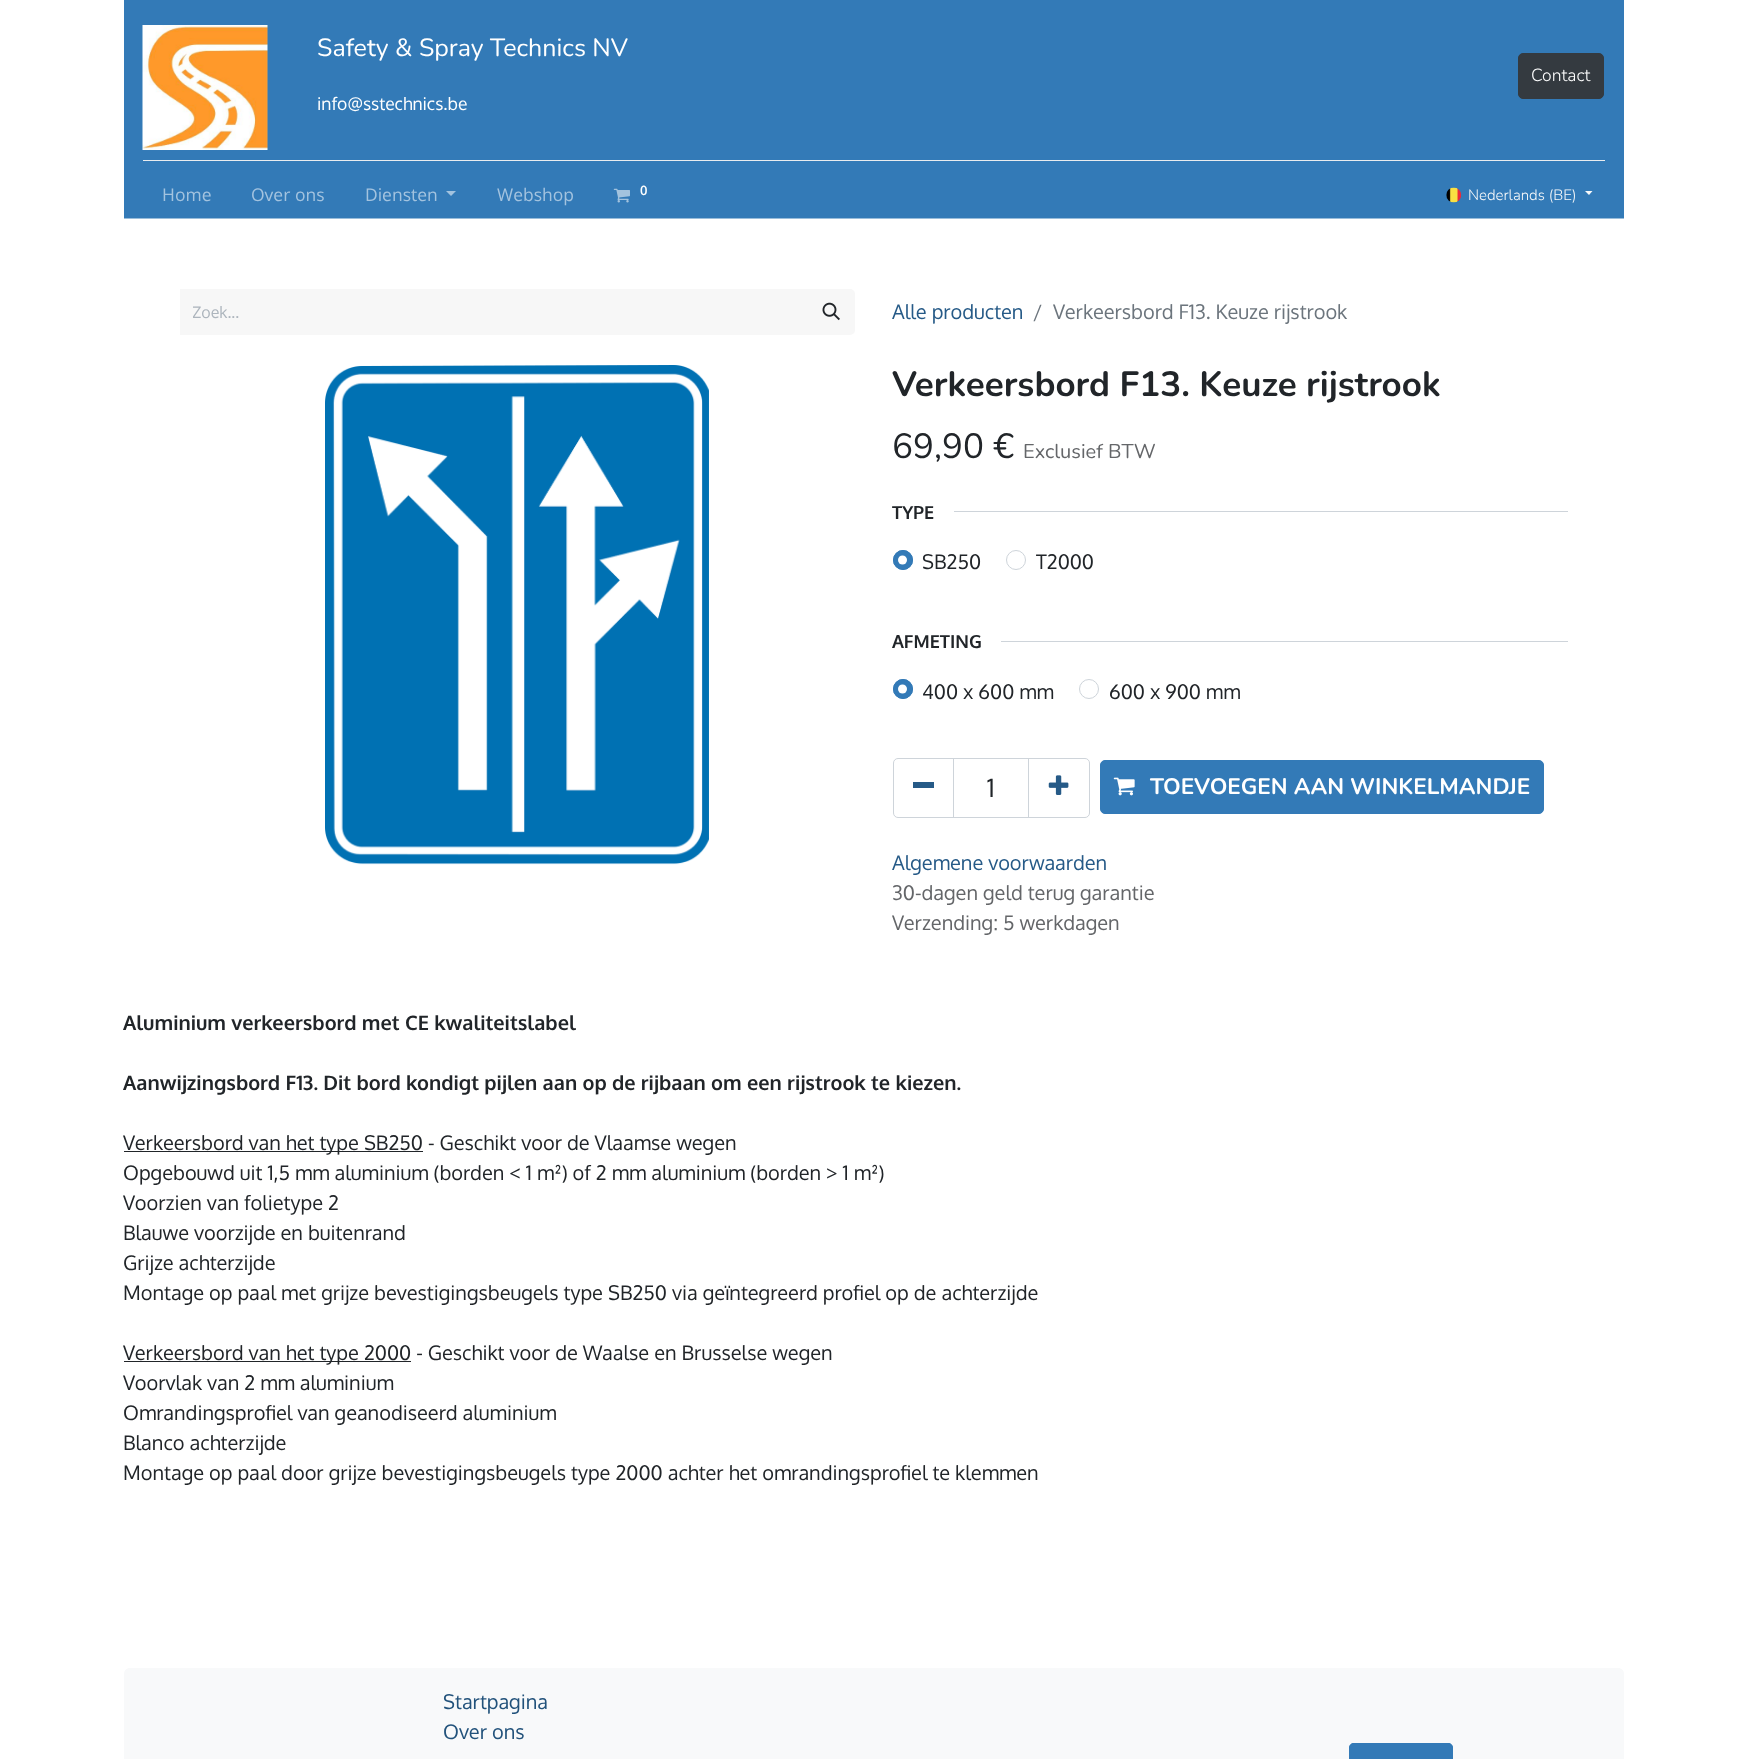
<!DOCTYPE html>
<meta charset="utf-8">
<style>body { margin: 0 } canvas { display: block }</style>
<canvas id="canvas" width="1746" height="1759"></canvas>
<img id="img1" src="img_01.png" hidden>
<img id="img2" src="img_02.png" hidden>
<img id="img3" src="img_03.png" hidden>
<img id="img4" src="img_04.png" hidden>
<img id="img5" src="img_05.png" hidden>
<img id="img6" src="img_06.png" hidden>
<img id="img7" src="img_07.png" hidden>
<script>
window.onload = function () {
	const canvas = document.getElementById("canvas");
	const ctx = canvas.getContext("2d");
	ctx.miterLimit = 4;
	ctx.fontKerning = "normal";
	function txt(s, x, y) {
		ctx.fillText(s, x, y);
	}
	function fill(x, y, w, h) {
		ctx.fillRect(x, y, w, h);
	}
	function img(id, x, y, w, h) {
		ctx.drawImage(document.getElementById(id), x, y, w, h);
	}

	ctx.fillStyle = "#FFFFFF";
	fill(0, 0, 1746, 1759);
	ctx.fillStyle = "#337AB7";
	fill(124, 0, 1500, 218);
	ctx.fillStyle = "#99BDDB";
	fill(124, 218, 1500, 1);
	img("img1", 142, 25, 126, 125);
	ctx.fillStyle = "#343A40";
	ctx.beginPath();
	ctx.roundRect(1518.5, 53.5, 85, 45, 4.5);
	ctx.fill();
	ctx.strokeStyle = "#343A40";
	ctx.stroke();
	ctx.fillStyle = "#E9ECEF";
	fill(143, 160, 1462, 1);
	ctx.fillStyle = "#A3C3DF";
	ctx.beginPath();
	ctx.moveTo(446, 191);
	ctx.lineTo(456, 191);
	ctx.lineTo(451, 196);
	ctx.closePath();
	ctx.fill();
	img("img2", 613, 188, 17, 15);
	img("img3", 1446, 187, 16, 16);
	ctx.fillStyle = "#F8F9FA";
	ctx.beginPath();
	ctx.moveTo(1585, 191);
	ctx.lineTo(1592.5, 191);
	ctx.lineTo(1589, 195);
	ctx.closePath();
	ctx.fill();
	ctx.fillStyle = "#F7F7F7";
	fill(180, 289, 629, 46);
	ctx.beginPath();
	ctx.roundRect(809, 289, 46, 46, [0, 5, 5, 0]);
	ctx.fill();
	img("img4", 822, 302, 18, 19);
	img("img5", 325, 365, 384, 500);
	ctx.fillStyle = "#CED4DA";
	fill(954, 511, 614, 1);
	ctx.fillStyle = "#337AB7";
	ctx.beginPath();
	ctx.arc(903, 560, 10, 0, Math.PI * 2);
	ctx.fill();
	ctx.fillStyle = "#FFFFFF";
	ctx.beginPath();
	ctx.arc(902.5, 560, 4.5, 0, Math.PI * 2);
	ctx.fill();
	ctx.beginPath();
	ctx.arc(903, 560, 9.5, 0, Math.PI * 2);
	ctx.strokeStyle = "#337AB7";
	ctx.stroke();
	ctx.beginPath();
	ctx.arc(1016, 560, 9.5, 0, Math.PI * 2);
	ctx.strokeStyle = "#CED4DA";
	ctx.stroke();
	ctx.fillStyle = "#CED4DA";
	fill(1001, 641, 567, 1);
	ctx.fillStyle = "#337AB7";
	ctx.beginPath();
	ctx.arc(903, 689, 10, 0, Math.PI * 2);
	ctx.fill();
	ctx.fillStyle = "#FFFFFF";
	ctx.beginPath();
	ctx.arc(902.5, 689, 4.5, 0, Math.PI * 2);
	ctx.fill();
	ctx.beginPath();
	ctx.arc(903, 689, 9.5, 0, Math.PI * 2);
	ctx.strokeStyle = "#337AB7";
	ctx.stroke();
	ctx.beginPath();
	ctx.arc(1089, 689, 9.5, 0, Math.PI * 2);
	ctx.strokeStyle = "#CED4DA";
	ctx.stroke();
	ctx.strokeRect(953.5, 758.5, 75, 59);
	ctx.beginPath();
	ctx.roundRect(893.5, 758.5, 60, 59, [4.5, 0, 0, 4.5]);
	ctx.stroke();
	ctx.fillStyle = "#265A87";
	fill(913, 782, 21, 6);
	ctx.beginPath();
	ctx.roundRect(1028.5, 758.5, 61, 59, [0, 4.5, 4.5, 0]);
	ctx.stroke();
	img("img6", 1048, 775, 21, 20);
	ctx.fillStyle = "#337AB7";
	ctx.beginPath();
	ctx.roundRect(1100.5, 760.5, 443, 53, 4.5);
	ctx.fill();
	ctx.strokeStyle = "#337AB7";
	ctx.stroke();
	img("img7", 1113, 777, 22, 19);
	ctx.fillStyle = "#212529";
	fill(124, 1151, 299, 1);
	fill(124, 1361, 287, 1);
	ctx.fillStyle = "#F8F9FA";
	ctx.beginPath();
	ctx.moveTo(130, 1668);
	ctx.lineTo(1618, 1668);
	ctx.bezierCurveTo(1621.5, 1668, 1624, 1670.5, 1624, 1674);
	ctx.lineTo(1624, 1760);
	ctx.lineTo(124, 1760);
	ctx.lineTo(124, 1674);
	ctx.bezierCurveTo(124, 1670.5, 126.5, 1668, 130, 1668);
	ctx.closePath();
	ctx.fill();
	ctx.fillStyle = "#337AB7";
	ctx.beginPath();
	ctx.moveTo(1354, 1743);
	ctx.lineTo(1448, 1743);
	ctx.bezierCurveTo(1451, 1743, 1453, 1745, 1453, 1748);
	ctx.lineTo(1453, 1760);
	ctx.lineTo(1349, 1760);
	ctx.lineTo(1349, 1748);
	ctx.bezierCurveTo(1349, 1745, 1351, 1743, 1354, 1743);
	ctx.closePath();
	ctx.fill();
	ctx.beginPath();
	ctx.roundRect(1349.5, 1743.5, 103, 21, 4.5);
	ctx.stroke();
	ctx.font = "25px Nunito";
	ctx.fillStyle = "#FFFFFF";
	txt("Safety & Spray Technics NV", 317, 56);
	ctx.font = "17.5px Oxygen";
	txt("info@sstechnics.be", 317, 110);
	ctx.font = "300 17.5px Nunito";
	txt("Contact", 1531, 81);
	ctx.font = "17.5px Open Sans";
	ctx.fillStyle = "#A3C3DF";
	txt("Home", 162, 201);
	txt("Over ons", 251, 201);
	txt("Diensten", 365, 201);
	txt("Webshop", 497, 201);
	ctx.font = "600 13px Open Sans";
	ctx.fillStyle = "#FFFFFF";
	txt("0", 640, 195);
	ctx.font = "300 15px Nunito";
	ctx.fillStyle = "#F8F9FA";
	txt("Nederlands (BE)", 1468, 200);
	ctx.save();
	ctx.beginPath();
	ctx.rect(193, 301, 588, 20);
	ctx.clip();
	ctx.font = "16px Oxygen";
	ctx.fillStyle = "#ADB5BD";
	txt("Zoek...", 192, 318);
	ctx.restore();
	ctx.font = "20px Oxygen";
	ctx.fillStyle = "#265A87";
	txt("Alle producten", 892, 319);
	ctx.fillStyle = "#6C757D";
	txt("/", 1033, 319);
	txt("Verkeersbord F13. Keuze rijstrook", 1053, 319);
	ctx.font = "bold 35px Nunito";
	ctx.fillStyle = "#212529";
	txt("Verkeersbord F13. Keuze rijstrook", 892, 396);
	ctx.font = "35px Nunito";
	txt("69,90 €", 892, 458);
	ctx.font = "20px Nunito";
	ctx.fillStyle = "#646669";
	txt("Exclusief BTW", 1023, 458);
	ctx.font = "bold 18px Oxygen";
	ctx.fillStyle = "#212529";
	txt("TYPE", 892, 519);
	ctx.font = "20px Oxygen";
	txt("SB250", 922, 569);
	txt("T2000", 1036, 569);
	ctx.font = "bold 18px Oxygen";
	txt("AFMETING", 892, 648);
	ctx.font = "20px Oxygen";
	txt("400 x 600 mm", 922, 699);
	txt("600 x 900 mm", 1109, 699);
	ctx.font = "25px Oxygen";
	txt("1", 987, 797);
	ctx.font = "bold 22.5px Nunito";
	ctx.fillStyle = "#FFFFFF";
	txt("TOEVOEGEN AAN WINKELMANDJE", 1150, 794);
	ctx.font = "20px Oxygen";
	ctx.fillStyle = "#265A87";
	txt("Algemene voorwaarden", 892, 870);
	ctx.fillStyle = "#646669";
	txt("30-dagen geld terug garantie", 892, 900);
	txt("Verzending: 5 werkdagen", 892, 930);
	ctx.font = "bold 20px Oxygen";
	ctx.fillStyle = "#212529";
	txt("Aluminium verkeersbord met CE kwaliteitslabel", 123, 1030);
	txt("Aanwijzingsbord F13. Dit bord kondigt pijlen aan op de rijbaan om een rijstrook te kiezen.", 123, 1090);
	ctx.font = "20px Oxygen";
	txt("Verkeersbord van het type SB250 - Geschikt voor de Vlaamse wegen", 123, 1150);
	txt("Opgebouwd uit 1,5 mm aluminium (borden < 1 m²) of 2 mm aluminium (borden > 1 m²)", 123, 1180);
	txt("Voorzien van folietype 2", 123, 1210);
	txt("Blauwe voorzijde en buitenrand", 123, 1240);
	txt("Grijze achterzijde", 123, 1270);
	txt("Montage op paal met grijze bevestigingsbeugels type SB250 via geïntegreerd profiel op de achterzijde", 123, 1300);
	txt("Verkeersbord van het type 2000 - Geschikt voor de Waalse en Brusselse wegen", 123, 1360);
	txt("Voorvlak van 2 mm aluminium", 123, 1390);
	txt("Omrandingsprofiel van geanodiseerd aluminium", 123, 1420);
	txt("Blanco achterzijde", 123, 1450);
	txt("Montage op paal door grijze bevestigingsbeugels type 2000 achter het omrandingsprofiel te klemmen", 123, 1480);
	ctx.fillStyle = "#22527B";
	txt("Startpagina", 443, 1709);
	txt("Over ons", 443, 1739);
};
</script>
